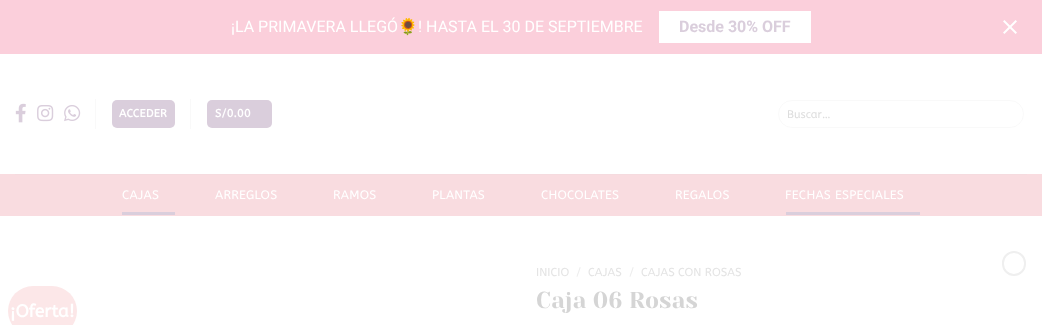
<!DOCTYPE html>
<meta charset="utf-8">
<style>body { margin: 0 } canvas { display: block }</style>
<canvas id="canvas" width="1042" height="325"></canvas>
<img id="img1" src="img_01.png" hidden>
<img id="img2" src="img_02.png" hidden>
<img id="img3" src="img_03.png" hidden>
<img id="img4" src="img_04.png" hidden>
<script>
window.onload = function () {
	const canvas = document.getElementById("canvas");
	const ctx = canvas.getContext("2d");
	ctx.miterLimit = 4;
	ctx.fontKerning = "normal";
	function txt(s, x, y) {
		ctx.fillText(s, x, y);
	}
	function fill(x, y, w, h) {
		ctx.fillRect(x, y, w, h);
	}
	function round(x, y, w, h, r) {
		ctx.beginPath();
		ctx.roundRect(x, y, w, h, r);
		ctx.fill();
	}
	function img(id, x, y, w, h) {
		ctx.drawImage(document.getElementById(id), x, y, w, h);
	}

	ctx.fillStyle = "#FFFFFF";
	fill(0, 0, 1042, 325);
	ctx.fillStyle = "#FBCFDB";
	fill(0, 0, 1042, 54);
	ctx.fillStyle = "#FFFFFF";
	fill(659, 11, 152, 32);
	img("img1", 1003, 20, 14, 14);
	img("img2", 15, 103, 11, 20);
	img("img3", 37, 105, 17, 17);
	img("img4", 64, 105, 17, 17);
	ctx.fillStyle = "#F9F9F9";
	fill(95, 99, 1, 30);
	ctx.fillStyle = "#DACEDC";
	round(112, 100, 63, 28, 5);
	ctx.fillStyle = "#F9F9F9";
	fill(190, 99, 1, 30);
	ctx.fillStyle = "#DACEDC";
	round(207, 100, 65, 28, 5);
	ctx.beginPath();
	ctx.roundRect(778.5, 100.5, 245, 27, 13.5);
	ctx.strokeStyle = "rgba(191, 191, 191, 0.09)";
	ctx.stroke();
	ctx.fillStyle = "#F9DCE0";
	fill(0, 174, 1042, 42);
	ctx.fillStyle = "#F5DBDF";
	fill(15, 174, 1012, 1);
	ctx.fillStyle = "#DACEDC";
	fill(122, 212, 53, 3);
	fill(786, 212, 134, 3);
	ctx.beginPath();
	ctx.roundRect(1003, 252, 22, 23, 11);
	ctx.strokeStyle = "#EFEFEF";
	ctx.lineWidth = 2;
	ctx.stroke();
	ctx.fillStyle = "#FCE7E8";
	round(8, 286, 69, 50, 25);
	ctx.font = "16px Roboto";
	ctx.fillStyle = "#FFFFFF";
	txt("¡LA PRIMAVERA LLEGÓ", 231, 32);
	ctx.font = "16px Noto Color Emoji";
	txt("🌻", 398, 32);
	ctx.font = "16px Roboto";
	txt("! HASTA EL 30 DE SEPTIEMBRE", 418, 32);
	ctx.font = "bold 16px Roboto";
	ctx.fillStyle = "#DACEDC";
	txt("Desde 30% OFF", 679, 32);
	ctx.letterSpacing = "0.25px";
	ctx.font = "bold 11px ABeeZee";
	ctx.fillStyle = "#FFFFFF";
	txt("ACCEDER", 119, 117);
	txt("S/0.00", 215, 117);
	ctx.letterSpacing = "0px";
	ctx.font = "11px ABeeZee";
	ctx.fillStyle = "#DDDDDD";
	txt("Buscar…", 787, 118);
	ctx.letterSpacing = "0.25px";
	ctx.font = "12.25px ABeeZee";
	ctx.fillStyle = "#FFFFFF";
	txt("CAJAS", 122, 199);
	txt("ARREGLOS", 215, 199);
	txt("RAMOS", 333, 199);
	txt("PLANTAS", 432, 199);
	txt("CHOCOLATES", 541, 199);
	txt("REGALOS", 675, 199);
	txt("FECHAS ESPECIALES", 785, 199);
	ctx.letterSpacing = "0px";
	ctx.font = "bold 17.5px ABeeZee";
	txt("¡Oferta!", 10, 317);
	ctx.font = "11.5px ABeeZee";
	ctx.fillStyle = "#E4E4E4";
	txt("INICIO", 536, 276);
	ctx.fillStyle = "#ECECEC";
	txt("/", 576, 276);
	ctx.fillStyle = "#E4E4E4";
	txt("CAJAS", 588, 276);
	ctx.fillStyle = "#ECECEC";
	txt("/", 629, 276);
	ctx.fillStyle = "#E4E4E4";
	txt("CAJAS CON ROSAS", 641, 276);
	ctx.font = "23px Yeseva One";
	ctx.fillStyle = "#D5D5D5";
	txt("Caja 06 Rosas", 536, 308);
};
</script>
